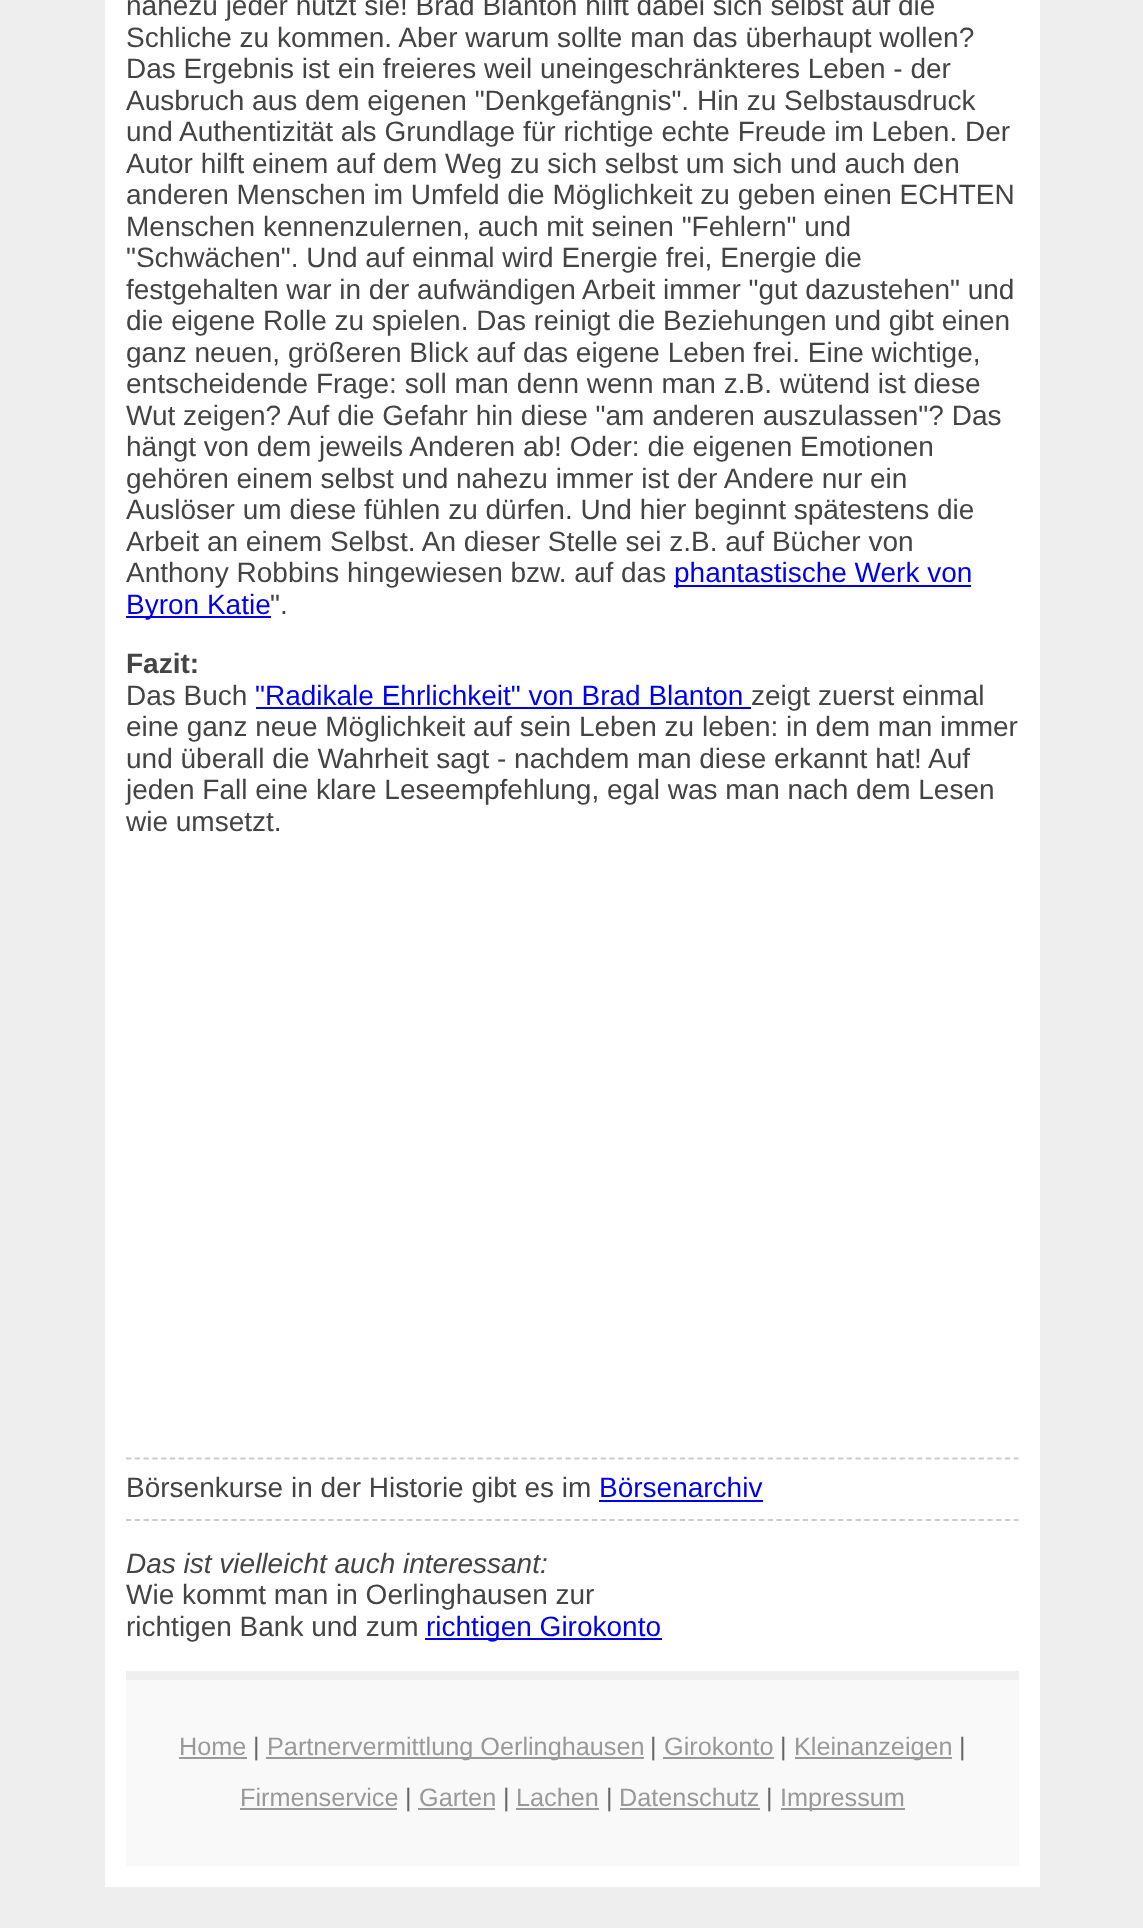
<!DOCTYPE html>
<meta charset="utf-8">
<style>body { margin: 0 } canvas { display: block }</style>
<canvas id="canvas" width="1143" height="1928"></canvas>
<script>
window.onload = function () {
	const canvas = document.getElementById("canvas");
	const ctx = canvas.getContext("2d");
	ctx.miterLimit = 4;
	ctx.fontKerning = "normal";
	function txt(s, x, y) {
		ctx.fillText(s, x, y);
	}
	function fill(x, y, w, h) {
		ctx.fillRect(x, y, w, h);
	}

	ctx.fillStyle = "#EEEEEE";
	fill(0, 0, 1143, 1928);
	ctx.fillStyle = "#FFFFFF";
	fill(105, 0, 935, 1887);
	ctx.fillStyle = "#0000EE";
	fill(674, 585, 297, 2);
	fill(126, 616, 145, 2);
	fill(256, 707, 495, 2);
	ctx.beginPath();
	ctx.moveTo(126, 1458.5);
	ctx.lineTo(1018.5, 1458.5);
	ctx.strokeStyle = "#CCCCCC";
	ctx.lineWidth = 1.8;
	ctx.setLineDash([5.25, 3.54]);
	ctx.stroke();
	fill(599, 1500, 164, 2);
	ctx.beginPath();
	ctx.moveTo(126, 1520);
	ctx.lineTo(1018.5, 1520);
	ctx.stroke();
	fill(425, 1638, 237, 2);
	ctx.fillStyle = "#F9F9F9";
	fill(126, 1680, 893, 186);
	ctx.fillStyle = "#EFEFEF";
	fill(126, 1671, 893, 9);
	ctx.fillStyle = "#999999";
	fill(179, 1757, 68, 2);
	fill(266, 1757, 378, 2);
	fill(663, 1757, 111, 2);
	fill(795, 1757, 157, 2);
	fill(240, 1808, 157, 2);
	fill(418, 1808, 77, 2);
	fill(516, 1808, 83, 2);
	fill(620, 1808, 140, 2);
	fill(781, 1808, 124, 2);
	ctx.font = "28px Liberation Sans";
	ctx.fillStyle = "#444444";
	txt("nahezu jeder nutzt sie! Brad Blanton hilft dabei sich selbst auf die", 126, 15);
	txt("Schliche zu kommen. Aber warum sollte man das überhaupt wollen?", 126, 47);
	txt("Das Ergebnis ist ein freieres weil uneingeschränkteres Leben - der", 126, 78);
	txt("Ausbruch aus dem eigenen \"Denkgefängnis\". Hin zu Selbstausdruck", 126, 110);
	txt("und Authentizität als Grundlage für richtige echte Freude im Leben. Der", 126, 141);
	txt("Autor hilft einem auf dem Weg zu sich selbst um sich und auch den", 126, 173);
	txt("anderen Menschen im Umfeld die Möglichkeit zu geben einen ECHTEN", 126, 204);
	txt("Menschen kennenzulernen, auch mit seinen \"Fehlern\" und", 126, 236);
	txt("\"Schwächen\". Und auf einmal wird Energie frei, Energie die", 126, 267);
	txt("festgehalten war in der aufwändigen Arbeit immer \"gut dazustehen\" und", 126, 299);
	txt("die eigene Rolle zu spielen. Das reinigt die Beziehungen und gibt einen", 126, 330);
	txt("ganz neuen, größeren Blick auf das eigene Leben frei. Eine wichtige,", 126, 362);
	txt("entscheidende Frage: soll man denn wenn man z.B. wütend ist diese", 126, 393);
	txt("Wut zeigen? Auf die Gefahr hin diese \"am anderen auszulassen\"? Das", 126, 425);
	txt("hängt von dem jeweils Anderen ab! Oder: die eigenen Emotionen", 126, 456);
	txt("gehören einem selbst und nahezu immer ist der Andere nur ein", 126, 488);
	txt("Auslöser um diese fühlen zu dürfen. Und hier beginnt spätestens die", 126, 519);
	txt("Arbeit an einem Selbst. An dieser Stelle sei z.B. auf Bücher von", 126, 551);
	txt("Anthony Robbins hingewiesen bzw. auf das", 126, 582);
	ctx.fillStyle = "#0000EE";
	txt("phantastische Werk von", 674, 582);
	txt("Byron Katie", 126, 614);
	ctx.fillStyle = "#444444";
	txt("\".", 270, 614);
	ctx.font = "bold 28px Liberation Sans";
	txt("Fazit:", 126, 673);
	ctx.font = "28px Liberation Sans";
	txt("Das Buch", 126, 705);
	ctx.fillStyle = "#0000EE";
	txt("\"Radikale Ehrlichkeit\" von Brad Blanton", 255, 705);
	ctx.fillStyle = "#444444";
	txt("zeigt zuerst einmal", 751, 705);
	txt("eine ganz neue Möglichkeit auf sein Leben zu leben: in dem man immer", 126, 736);
	txt("und überall die Wahrheit sagt - nachdem man diese erkannt hat! Auf", 126, 768);
	txt("jeden Fall eine klare Leseempfehlung, egal was man nach dem Lesen", 126, 799);
	txt("wie umsetzt.", 126, 831);
	txt("Börsenkurse in der Historie gibt es im", 126, 1497);
	ctx.fillStyle = "#0000EE";
	txt("Börsenarchiv", 599, 1497);
	ctx.font = "italic 28px Liberation Sans";
	ctx.fillStyle = "#444444";
	txt("Das ist vielleicht auch interessant:", 126, 1573);
	ctx.font = "28px Liberation Sans";
	txt("Wie kommt man in Oerlinghausen zur", 126, 1604);
	txt("richtigen Bank und zum", 126, 1636);
	ctx.fillStyle = "#0000EE";
	txt("richtigen Girokonto", 426, 1636);
	ctx.font = "25.25px Liberation Sans";
	ctx.fillStyle = "#999999";
	txt("Home", 179, 1755);
	ctx.fillStyle = "#666666";
	txt("|", 253, 1755);
	ctx.fillStyle = "#999999";
	txt("Partnervermittlung Oerlinghausen", 267, 1755);
	ctx.fillStyle = "#666666";
	txt("|", 650, 1755);
	ctx.fillStyle = "#999999";
	txt("Girokonto", 664, 1755);
	ctx.fillStyle = "#666666";
	txt("|", 780, 1755);
	ctx.fillStyle = "#999999";
	txt("Kleinanzeigen", 794, 1755);
	ctx.fillStyle = "#666666";
	txt("|", 959, 1755);
	ctx.fillStyle = "#999999";
	txt("Firmenservice", 240, 1806);
	ctx.fillStyle = "#666666";
	txt("|", 405, 1806);
	ctx.fillStyle = "#999999";
	txt("Garten", 419, 1806);
	ctx.fillStyle = "#666666";
	txt("|", 503, 1806);
	ctx.fillStyle = "#999999";
	txt("Lachen", 516, 1806);
	ctx.fillStyle = "#666666";
	txt("|", 606, 1806);
	ctx.fillStyle = "#999999";
	txt("Datenschutz", 619, 1806);
	ctx.fillStyle = "#666666";
	txt("|", 766, 1806);
	ctx.fillStyle = "#999999";
	txt("Impressum", 780, 1806);
};
</script>
